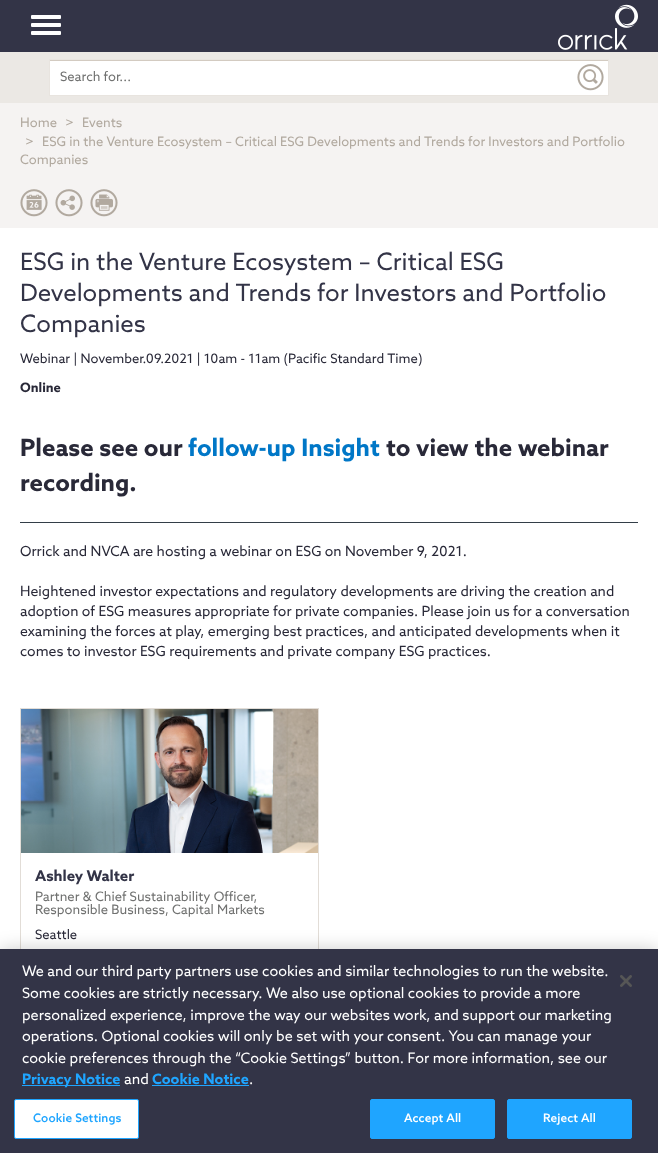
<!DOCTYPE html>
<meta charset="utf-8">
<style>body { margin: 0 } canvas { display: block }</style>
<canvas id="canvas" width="658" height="1153"></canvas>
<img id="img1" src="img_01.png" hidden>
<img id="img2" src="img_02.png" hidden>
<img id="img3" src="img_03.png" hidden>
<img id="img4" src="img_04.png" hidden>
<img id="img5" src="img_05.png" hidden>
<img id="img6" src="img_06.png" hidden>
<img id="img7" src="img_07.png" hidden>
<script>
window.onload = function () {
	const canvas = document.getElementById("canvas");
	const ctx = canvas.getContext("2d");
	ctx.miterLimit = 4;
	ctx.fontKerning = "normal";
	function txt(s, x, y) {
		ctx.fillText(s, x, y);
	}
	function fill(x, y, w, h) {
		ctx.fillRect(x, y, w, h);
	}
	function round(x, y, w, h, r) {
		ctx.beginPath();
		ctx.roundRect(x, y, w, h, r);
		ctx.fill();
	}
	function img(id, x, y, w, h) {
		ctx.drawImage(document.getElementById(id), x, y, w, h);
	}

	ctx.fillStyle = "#FFFFFF";
	fill(0, 0, 658, 1153);
	ctx.fillStyle = "#333447";
	fill(0, 0, 658, 52);
	ctx.fillStyle = "#FFFFFF";
	round(31, 15, 30, 4, 1);
	round(31, 23, 30, 4, 1);
	round(31, 31, 30, 4, 1);
	img("img1", 558, 4, 80, 46);
	ctx.fillStyle = "#EBE8E4";
	fill(0, 52, 658, 51);
	ctx.fillStyle = "#FFFFFF";
	fill(50, 61, 558, 34);
	ctx.fillStyle = "#D3CBC1";
	fill(50, 60, 558, 1);
	ctx.fillStyle = "#E8E4DF";
	fill(49, 59, 560, 1);
	fill(49, 95, 525, 1);
	fill(49, 59, 1, 37);
	fill(608, 59, 1, 37);
	fill(573, 95, 36, 1);
	img("img2", 577, 64, 27, 27);
	ctx.fillStyle = "#F5F3F2";
	fill(0, 103, 658, 125);
	img("img3", 20, 189, 28, 28);
	img("img4", 55, 189, 28, 28);
	img("img5", 90, 189, 28, 28);
	ctx.fillStyle = "#333E48";
	fill(20, 522, 618, 1);
	ctx.strokeStyle = "#E2DDD7";
	ctx.strokeRect(20.5, 708.5, 298, 337);
	img("img6", 21, 709, 297, 144);
	ctx.fillStyle = "rgba(0, 0, 0, 0.2)";
	ctx.filter = "blur(9px)";
	ctx.beginPath();
	ctx.rect(0, 949, 658, 204);
	ctx.fill();
	ctx.filter = "none";
	ctx.fillStyle = "#333447";
	fill(0, 949, 658, 204);
	ctx.fillStyle = "#1FA5FF";
	fill(22, 1085, 98, 1);
	fill(152, 1085, 97, 1);
	ctx.fillStyle = "#FFFFFF";
	ctx.beginPath();
	ctx.roundRect(14.5, 1099.5, 124, 39, 1.5);
	ctx.fill();
	ctx.strokeStyle = "#1FA5FF";
	ctx.stroke();
	ctx.fillStyle = "#1FA5FF";
	ctx.beginPath();
	ctx.roundRect(370.5, 1099.5, 124, 39, 1.5);
	ctx.fill();
	ctx.stroke();
	ctx.beginPath();
	ctx.roundRect(507.5, 1099.5, 124, 39, 1.5);
	ctx.fill();
	ctx.stroke();
	img("img7", 620, 975, 12, 12);
	ctx.font = "13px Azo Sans";
	ctx.fillStyle = "#717271";
	txt("Search for...", 60, 81);
	ctx.fillStyle = "#B1A99F";
	txt("Home", 20, 127);
	txt(">", 65, 127);
	txt("Events", 82, 127);
	txt(">", 25, 146);
	txt("ESG in the Venture Ecosystem – Critical ESG Developments and Trends for Investors and Portfolio", 42, 146);
	txt("Companies", 20, 164);
	ctx.font = "24px Azo Sans";
	ctx.fillStyle = "#333447";
	txt("ESG in the Venture Ecosystem – Critical ESG", 20, 270);
	txt("Developments and Trends for Investors and Portfolio", 20, 301);
	txt("Companies", 20, 332);
	ctx.font = "13px Azo Sans";
	ctx.fillStyle = "#292938";
	txt("Webinar | November.09.2021 | 10am - 11am (Pacific Standard Time)", 20, 363);
	ctx.font = "bold 13px Azo Sans";
	txt("Online", 20, 392);
	ctx.font = "bold 24px Azo Sans";
	txt("Please see our", 20, 456);
	ctx.fillStyle = "#0077C7";
	txt("follow-up Insight", 188, 456);
	ctx.fillStyle = "#292938";
	txt("to view the webinar", 386, 456);
	txt("recording.", 20, 491);
	ctx.font = "14px Azo Sans";
	txt("Orrick and NVCA are hosting a webinar on ESG on November 9, 2021.", 20, 556);
	txt("Heightened investor expectations and regulatory developments are driving the creation and", 20, 596);
	txt("adoption of ESG measures appropriate for private companies. Please join us for a conversation", 20, 616);
	txt("examining the forces at play, emerging best practices, and anticipated developments when it", 20, 636);
	txt("comes to investor ESG requirements and private company ESG practices.", 20, 656);
	ctx.font = "bold 15px Azo Sans";
	ctx.fillStyle = "#333447";
	txt("Ashley Walter", 35, 881);
	ctx.font = "13px Azo Sans";
	ctx.fillStyle = "#717271";
	txt("Partner & Chief Sustainability Officer,", 35, 901);
	txt("Responsible Business, Capital Markets", 35, 914);
	ctx.fillStyle = "#292938";
	txt("Seattle", 35, 939);
	ctx.font = "14.4px Azo Sans";
	ctx.fillStyle = "#FFFFFF";
	txt("We and our third party partners use cookies and similar technologies to run the website.", 22, 976);
	txt("Some cookies are strictly necessary. We also use optional cookies to provide a more", 22, 998);
	txt("personalized experience, improve the way our websites work, and support our marketing", 22, 1020);
	txt("operations. Optional cookies will only be set with your consent. You can manage your", 22, 1041);
	txt("cookie preferences through the “Cookie Settings” button. For more information, see our", 22, 1063);
	ctx.font = "bold 14.4px Azo Sans";
	ctx.fillStyle = "#1FA5FF";
	txt("Privacy Notice", 22, 1084);
	ctx.font = "14.4px Azo Sans";
	ctx.fillStyle = "#FFFFFF";
	txt("and", 124, 1084);
	ctx.font = "bold 14.4px Azo Sans";
	ctx.fillStyle = "#1FA5FF";
	txt("Cookie Notice", 152, 1084);
	ctx.font = "14.4px Azo Sans";
	ctx.fillStyle = "#FFFFFF";
	txt(".", 249, 1084);
	ctx.letterSpacing = "0.1px";
	ctx.font = "500 11.75px Azo Sans";
	ctx.fillStyle = "#1FA5FF";
	txt("Cookie Settings", 33, 1122);
	ctx.fillStyle = "#FFFFFF";
	txt("Accept All", 404, 1122);
	txt("Reject All", 543, 1122);
};
</script>
